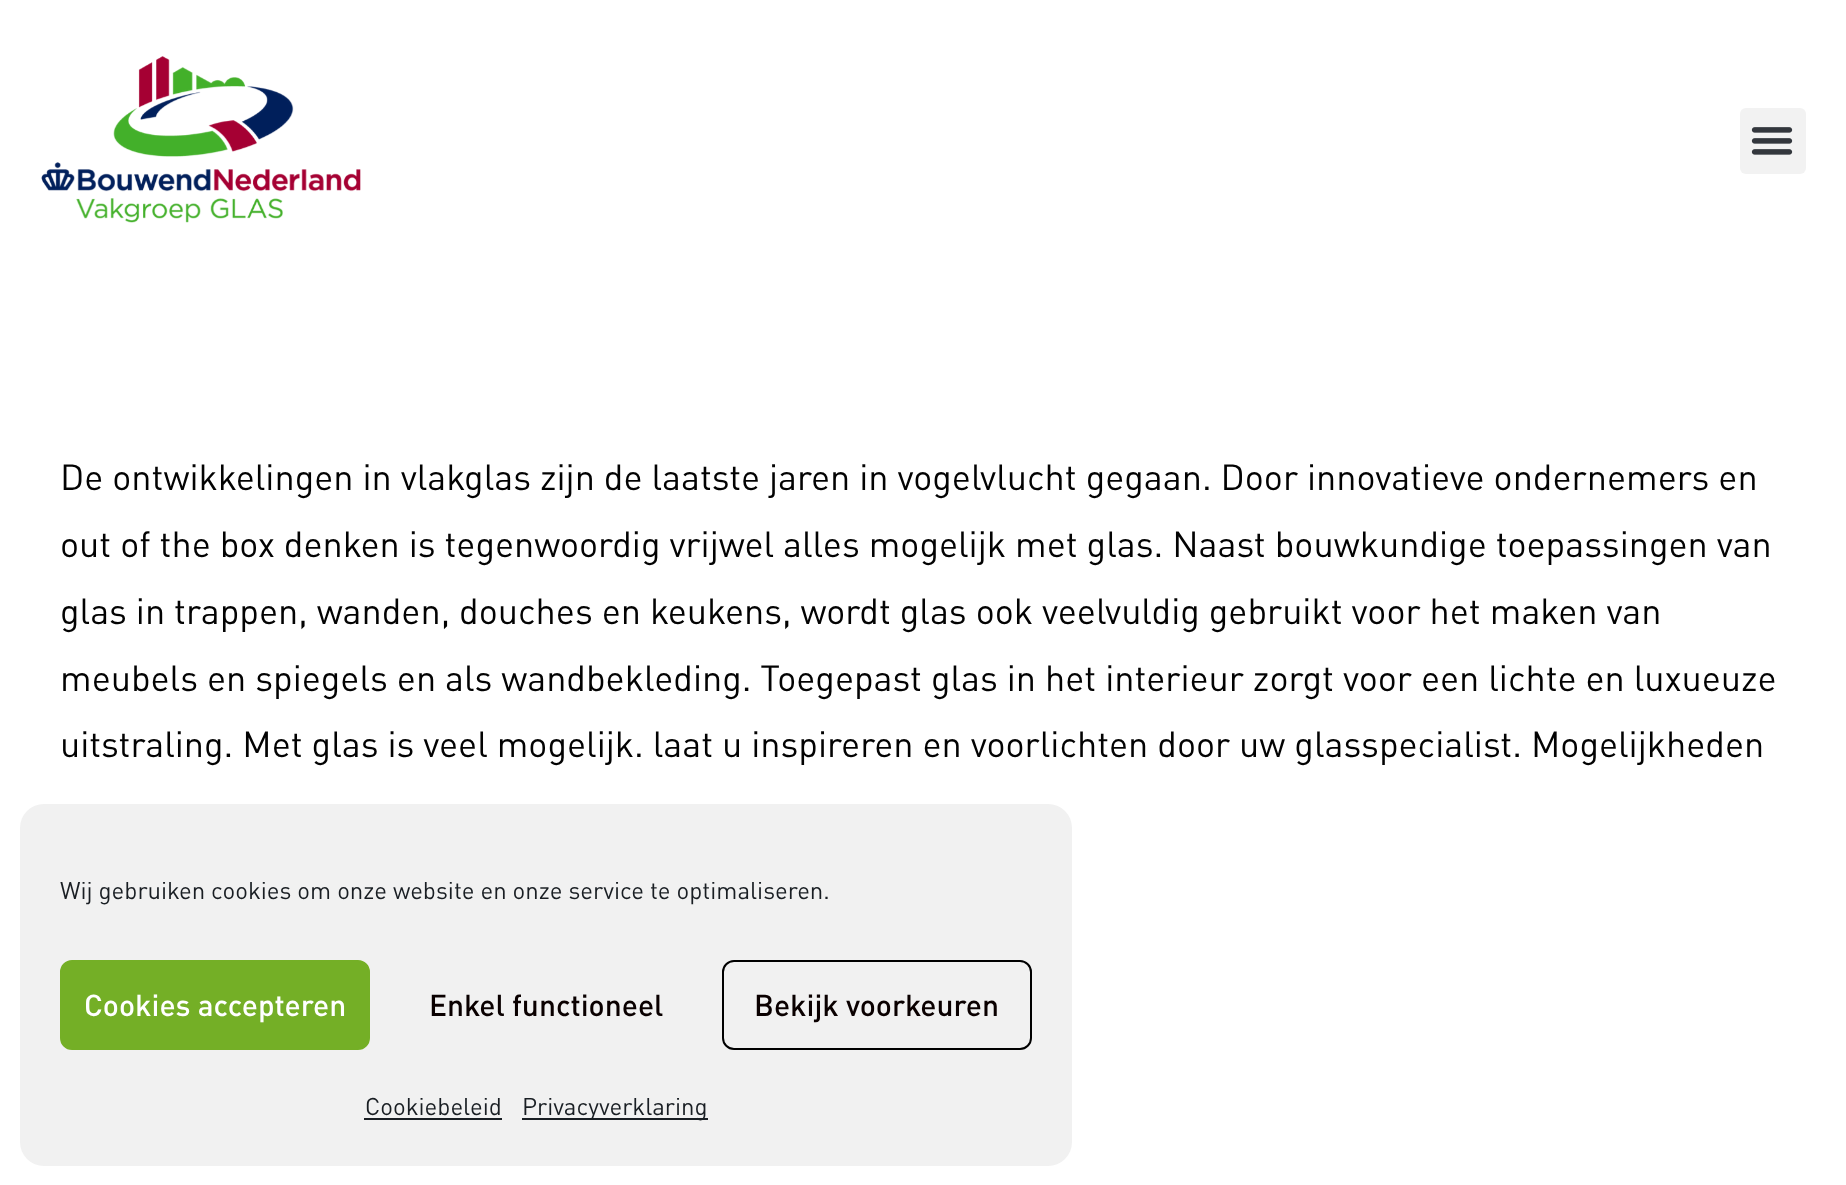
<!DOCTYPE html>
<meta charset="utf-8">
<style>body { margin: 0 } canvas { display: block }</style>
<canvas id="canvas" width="1846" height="1185"></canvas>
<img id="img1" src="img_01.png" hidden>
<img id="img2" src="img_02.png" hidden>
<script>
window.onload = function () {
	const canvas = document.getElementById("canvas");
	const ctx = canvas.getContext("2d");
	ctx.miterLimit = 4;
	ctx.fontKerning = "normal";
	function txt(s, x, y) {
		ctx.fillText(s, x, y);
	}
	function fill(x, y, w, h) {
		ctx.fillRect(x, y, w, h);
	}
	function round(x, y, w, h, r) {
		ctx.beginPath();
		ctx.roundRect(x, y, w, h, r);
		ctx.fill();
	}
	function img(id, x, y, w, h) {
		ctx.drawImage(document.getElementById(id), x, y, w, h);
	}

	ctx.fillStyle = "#FFFFFF";
	fill(0, 0, 1846, 1185);
	img("img1", 41, 56, 320, 167);
	ctx.fillStyle = "#F2F2F2";
	round(1740, 108, 66, 66, 6);
	img("img2", 1751, 127, 42, 28);
	ctx.fillStyle = "#F1F1F1";
	round(20, 804, 1052, 362, 24);
	ctx.fillStyle = "#74AF26";
	ctx.beginPath();
	ctx.roundRect(61, 961, 308, 88, 11);
	ctx.fill();
	ctx.strokeStyle = "#74AF26";
	ctx.lineWidth = 2;
	ctx.stroke();
	ctx.beginPath();
	ctx.roundRect(723, 961, 308, 88, 11);
	ctx.strokeStyle = "#000000";
	ctx.stroke();
	ctx.fillStyle = "#191E23";
	fill(364, 1118, 138, 2);
	fill(522, 1118, 186, 2);
	ctx.font = "36px DIN";
	ctx.fillStyle = "#020202";
	txt("De ontwikkelingen in vlakglas zijn de laatste jaren in vogelvlucht gegaan. Door innovatieve ondernemers en", 60, 490);
	txt("out of the box denken is tegenwoordig vrijwel alles mogelijk met glas. Naast bouwkundige toepassingen van", 60, 557);
	txt("glas in trappen, wanden, douches en keukens, wordt glas ook veelvuldig gebruikt voor het maken van", 60, 624);
	txt("meubels en spiegels en als wandbekleding. Toegepast glas in het interieur zorgt voor een lichte en luxueuze", 60, 691);
	txt("uitstraling. Met glas is veel mogelijk. laat u inspireren en voorlichten door uw glasspecialist. Mogelijkheden", 60, 757);
	ctx.font = "24px DIN";
	ctx.fillStyle = "#191E23";
	txt("Wij gebruiken cookies om onze website en onze service te optimaliseren.", 60, 899);
	ctx.font = "500 30px DIN";
	ctx.fillStyle = "#FFFFFF";
	txt("Cookies accepteren", 84, 1016);
	ctx.fillStyle = "#0A0000";
	txt("Enkel functioneel", 429, 1016);
	txt("Bekijk voorkeuren", 754, 1016);
	ctx.font = "24px DIN";
	ctx.fillStyle = "#191E23";
	txt("Cookiebeleid", 365, 1115);
	txt("Privacyverklaring", 522, 1115);
};
</script>
